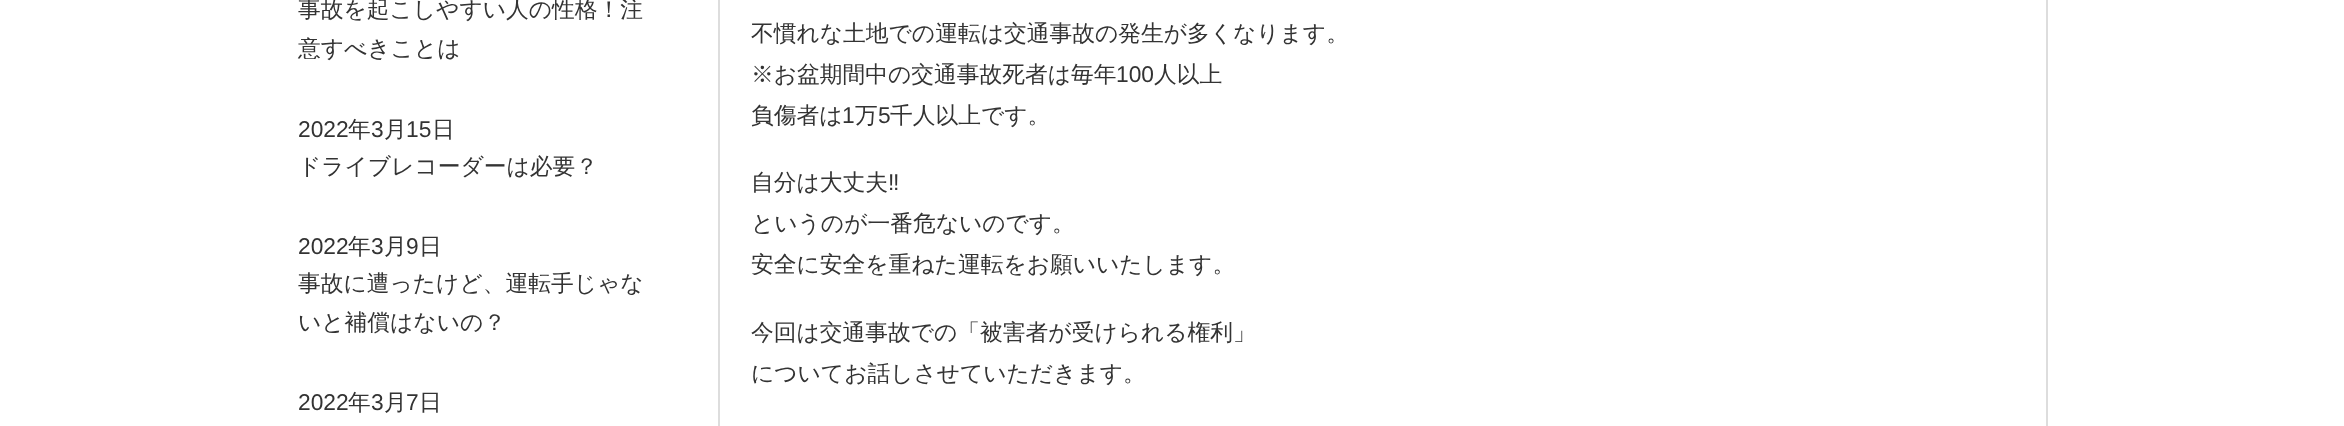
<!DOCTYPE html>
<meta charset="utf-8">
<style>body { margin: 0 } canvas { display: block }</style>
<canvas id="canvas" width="2344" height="426"></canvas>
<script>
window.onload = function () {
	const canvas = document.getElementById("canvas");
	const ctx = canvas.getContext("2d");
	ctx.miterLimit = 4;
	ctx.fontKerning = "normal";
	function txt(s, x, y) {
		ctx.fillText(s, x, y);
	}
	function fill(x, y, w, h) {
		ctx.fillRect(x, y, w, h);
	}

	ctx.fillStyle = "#FFFFFF";
	fill(0, 0, 2344, 426);
	ctx.strokeStyle = "#DDDDDD";
	ctx.lineWidth = 2;
	ctx.strokeRect(719, -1, 1328, 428);
	ctx.font = "500 22.75px WenQuanYi Zen Hei";
	ctx.fillStyle = "#333333";
	txt("事故を起こしやすい人の性格！注", 298, 17);
	txt("意すべきことは", 298, 56);
	ctx.font = "22.75px Liberation Sans";
	txt("2022", 298, 137);
	ctx.font = "500 22.75px WenQuanYi Zen Hei";
	txt("年", 348, 137);
	ctx.font = "22.75px Liberation Sans";
	txt("3", 371, 137);
	ctx.font = "500 22.75px WenQuanYi Zen Hei";
	txt("月", 384, 137);
	ctx.font = "22.75px Liberation Sans";
	txt("15", 406, 137);
	ctx.font = "500 22.75px WenQuanYi Zen Hei";
	txt("日", 432, 137);
	txt("ドライブレコーダーは必要？", 298, 174);
	ctx.font = "22.75px Liberation Sans";
	txt("2022", 298, 254);
	ctx.font = "500 22.75px WenQuanYi Zen Hei";
	txt("年", 348, 254);
	ctx.font = "22.75px Liberation Sans";
	txt("3", 371, 254);
	ctx.font = "500 22.75px WenQuanYi Zen Hei";
	txt("月", 384, 254);
	ctx.font = "22.75px Liberation Sans";
	txt("9", 406, 254);
	ctx.font = "500 22.75px WenQuanYi Zen Hei";
	txt("日", 419, 254);
	txt("事故に遭ったけど、運転手じゃな", 298, 291);
	txt("いと補償はないの？", 298, 330);
	ctx.font = "22.75px Liberation Sans";
	txt("2022", 298, 410);
	ctx.font = "500 22.75px WenQuanYi Zen Hei";
	txt("年", 348, 410);
	ctx.font = "22.75px Liberation Sans";
	txt("3", 371, 410);
	ctx.font = "500 22.75px WenQuanYi Zen Hei";
	txt("月", 384, 410);
	ctx.font = "22.75px Liberation Sans";
	txt("7", 406, 410);
	ctx.font = "500 22.75px WenQuanYi Zen Hei";
	txt("日", 419, 410);
	txt("不慣れな土地での運転は交通事故の発生が多くなります。", 751, 41);
	txt("※お盆期間中の交通事故死者は毎年", 751, 82);
	ctx.font = "22.75px Liberation Sans";
	txt("100", 1116, 82);
	ctx.font = "500 22.75px WenQuanYi Zen Hei";
	txt("人以上", 1154, 82);
	txt("負傷者は", 751, 123);
	ctx.font = "22.75px Liberation Sans";
	txt("1", 842, 123);
	ctx.font = "500 22.75px WenQuanYi Zen Hei";
	txt("万", 855, 123);
	ctx.font = "22.75px Liberation Sans";
	txt("5", 878, 123);
	ctx.font = "500 22.75px WenQuanYi Zen Hei";
	txt("千人以上です。", 890, 123);
	txt("自分は大丈夫", 751, 190);
	ctx.font = "22.75px Liberation Sans";
	txt("‼︎", 888, 190);
	ctx.font = "500 22.75px WenQuanYi Zen Hei";
	txt("というのが一番危ないのです。", 751, 231);
	txt("安全に安全を重ねた運転をお願いいたします。", 751, 272);
	txt("今回は交通事故での「被害者が受けられる権利」", 751, 340);
	txt("についてお話しさせていただきます。", 751, 381);
};
</script>
